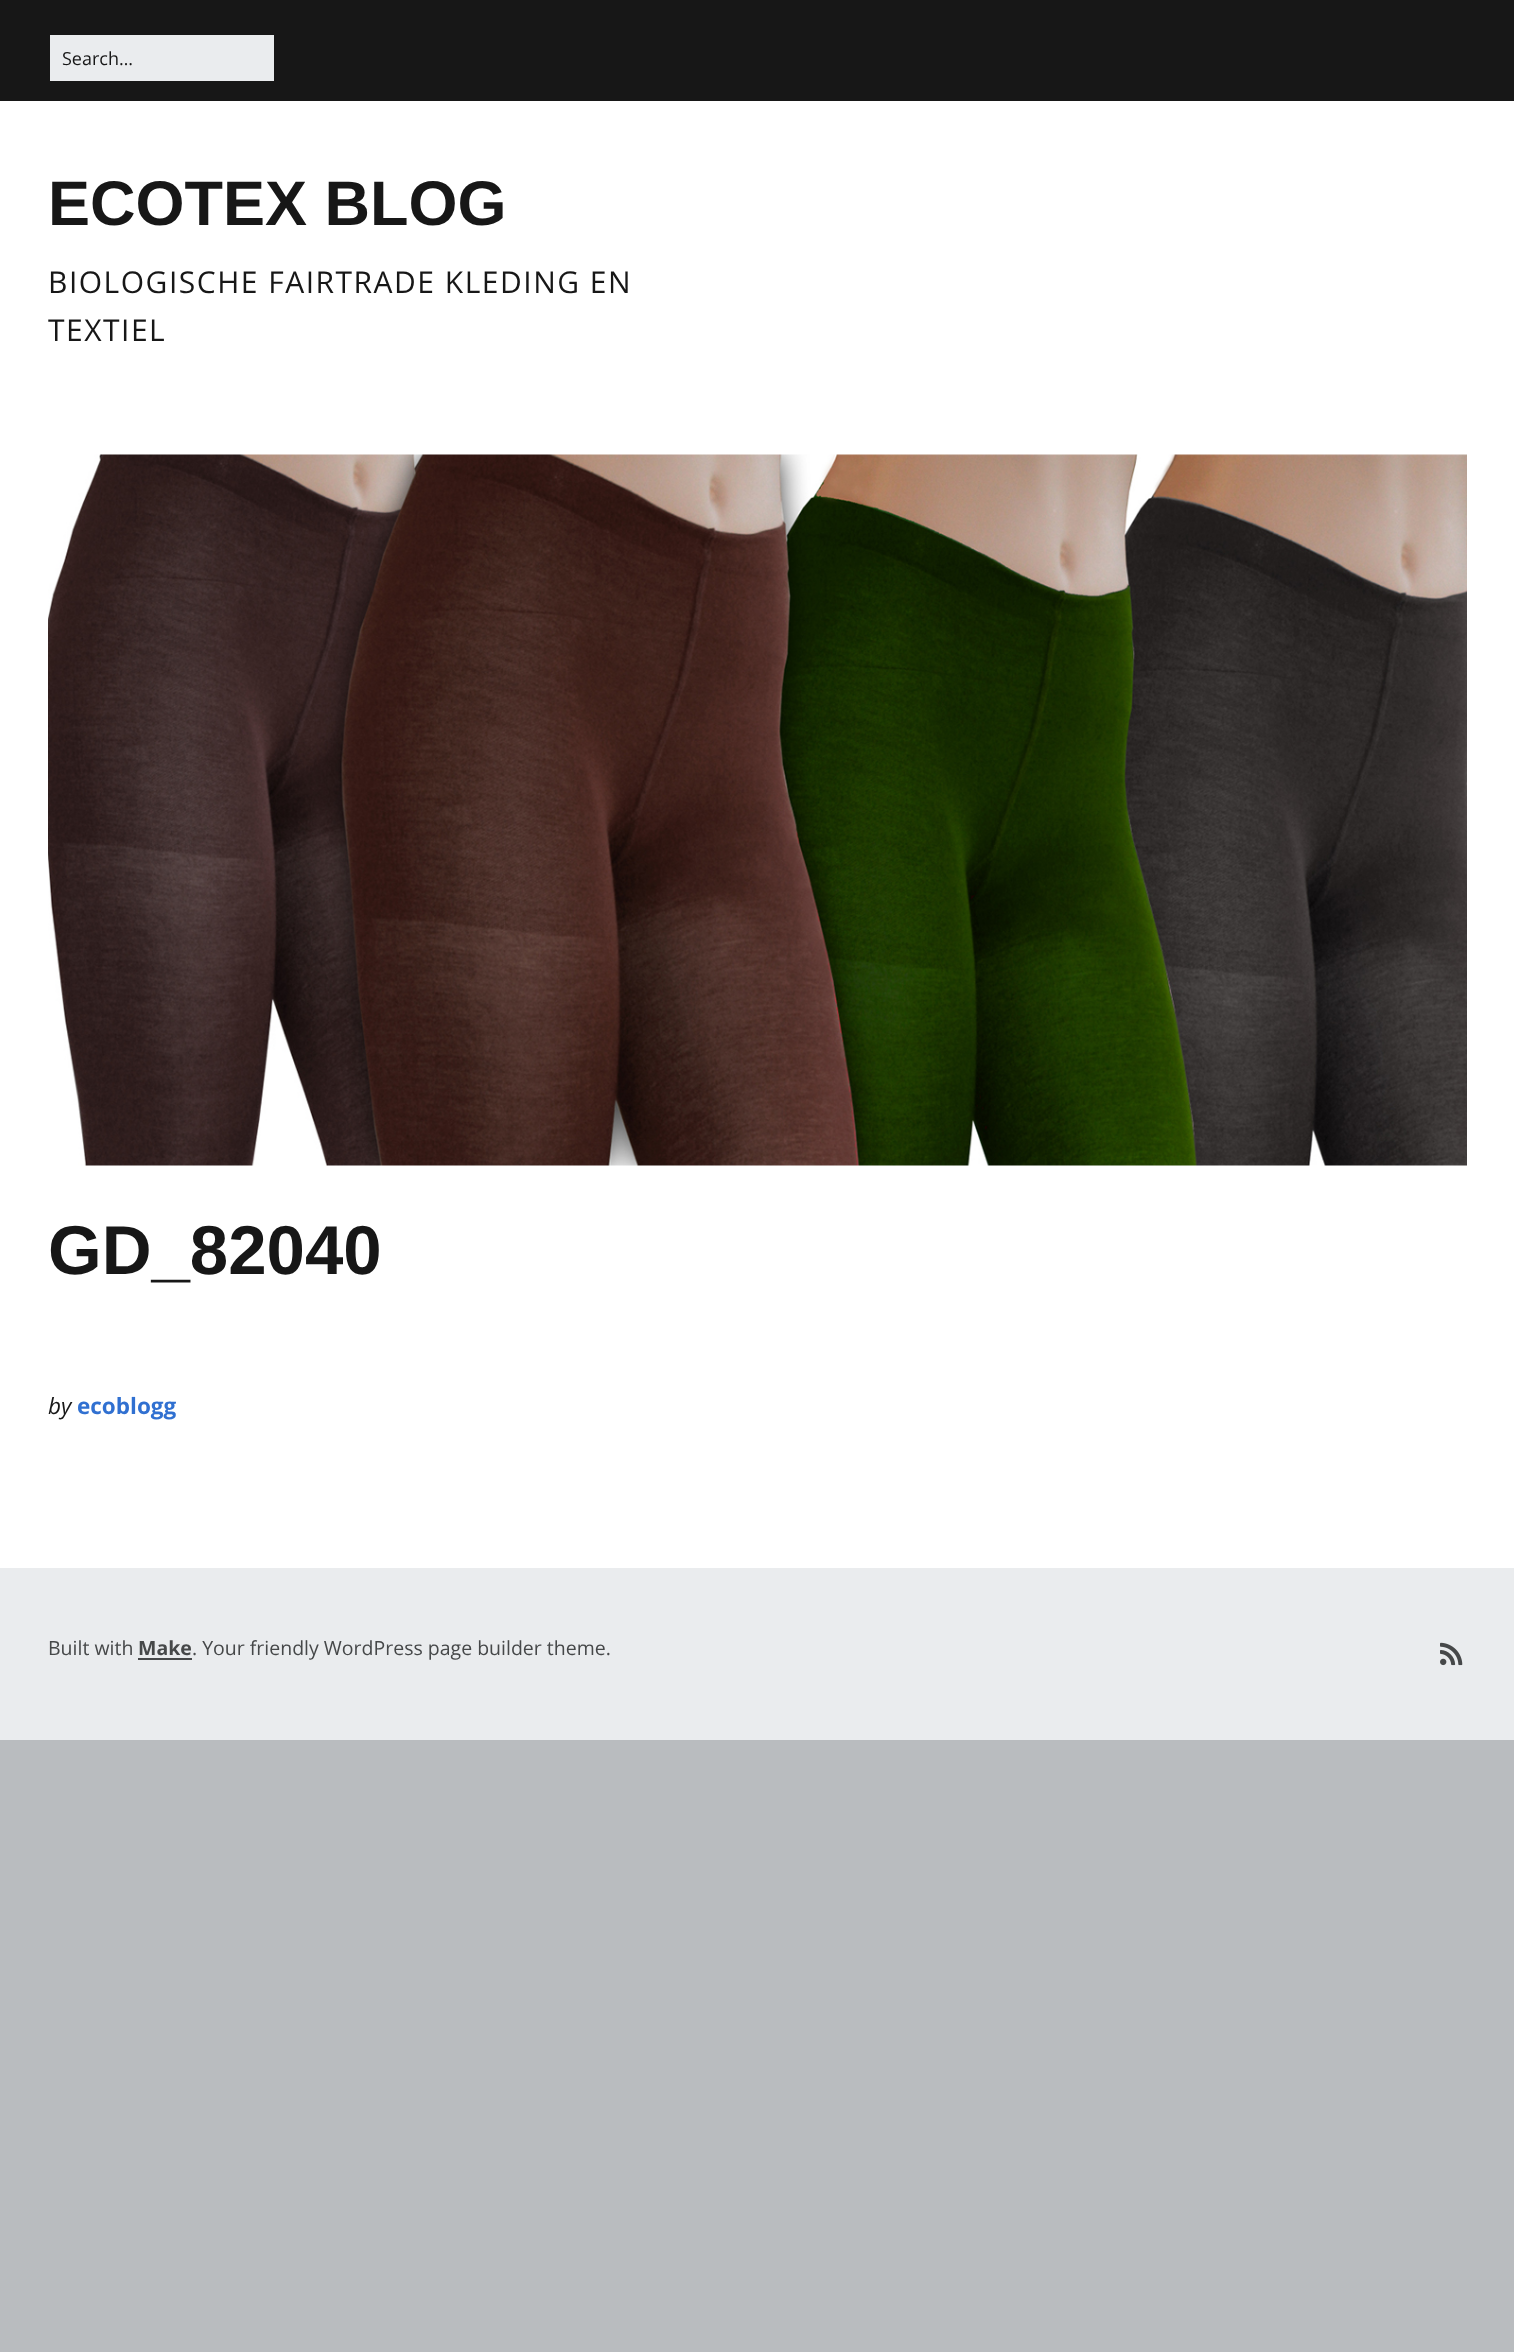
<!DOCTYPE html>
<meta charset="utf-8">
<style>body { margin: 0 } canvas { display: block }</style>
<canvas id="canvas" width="1514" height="2352"></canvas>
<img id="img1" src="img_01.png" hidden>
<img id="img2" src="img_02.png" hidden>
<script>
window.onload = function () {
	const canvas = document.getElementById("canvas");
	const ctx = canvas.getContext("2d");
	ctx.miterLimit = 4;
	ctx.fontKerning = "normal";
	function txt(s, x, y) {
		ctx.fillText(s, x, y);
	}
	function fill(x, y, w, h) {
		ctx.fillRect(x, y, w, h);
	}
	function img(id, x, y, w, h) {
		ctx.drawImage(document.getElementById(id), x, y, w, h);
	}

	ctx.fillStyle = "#B9BCBF";
	fill(0, 0, 1514, 2352);
	ctx.fillStyle = "#171717";
	fill(0, 0, 1514, 101);
	ctx.fillStyle = "#EAECEE";
	fill(50, 35, 224, 46);
	ctx.fillStyle = "#FFFFFF";
	fill(0, 101, 1514, 1467);
	img("img1", 48, 454, 1419, 712);
	ctx.fillStyle = "#EAECEE";
	fill(0, 1568, 1514, 172);
	ctx.fillStyle = "#464849";
	fill(138, 1658, 54, 2);
	img("img2", 1440, 1642, 23, 24);
	ctx.font = "18px Open Sans";
	ctx.fillStyle = "#171717";
	txt("Search…", 62, 65);
	ctx.font = "bold 63px Liberation Sans";
	txt("ECOTEX BLOG", 48, 225);
	ctx.letterSpacing = "1.5px";
	ctx.font = "30px Open Sans";
	txt("BIOLOGISCHE FAIRTRADE KLEDING EN", 48, 293);
	txt("TEXTIEL", 48, 341);
	ctx.letterSpacing = "0px";
	ctx.font = "bold 69px Liberation Sans";
	txt("GD_82040", 48, 1274);
	ctx.font = "italic 22.5px Open Sans";
	txt("by", 48, 1414);
	ctx.font = "bold 22.5px Open Sans";
	ctx.fillStyle = "#3070D1";
	txt("ecoblogg", 77, 1414);
	ctx.font = "19.5px Open Sans";
	ctx.fillStyle = "#464849";
	txt("Built with", 48, 1655);
	ctx.font = "bold 19.5px Open Sans";
	txt("Make", 138, 1655);
	ctx.font = "19.5px Open Sans";
	txt(". Your friendly WordPress page builder theme.", 192, 1655);
};
</script>
